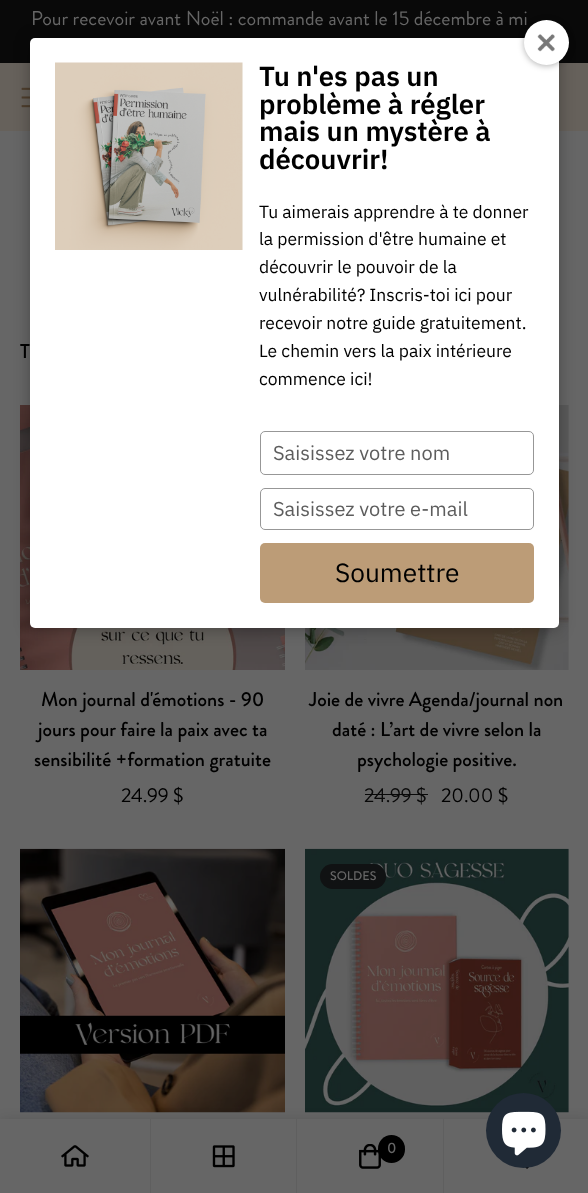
<!DOCTYPE html>
<meta charset="utf-8">
<style>body { margin: 0 } canvas { display: block }</style>
<canvas id="canvas" width="588" height="1193"></canvas>
<img id="img1" src="img_01.png" hidden>
<img id="img2" src="img_04.png" hidden>
<img id="img3" src="img_05.png" hidden>
<img id="img4" src="img_03.png" hidden>
<img id="img5" src="img_06.png" hidden>
<img id="img6" src="img_07.png" hidden>
<img id="img7" src="img_08.png" hidden>
<img id="img8" src="img_09.png" hidden>
<img id="img9" src="img_10.png" hidden>
<img id="img10" src="img_11.png" hidden>
<img id="img11" src="img_12.png" hidden>
<img id="img12" src="img_02.png" hidden>
<script>
window.onload = function () {
	const canvas = document.getElementById("canvas");
	const ctx = canvas.getContext("2d");
	ctx.miterLimit = 4;
	ctx.fontKerning = "normal";
	function txt(s, x, y) {
		ctx.fillText(s, x, y);
	}
	function fill(x, y, w, h) {
		ctx.fillRect(x, y, w, h);
	}
	function round(x, y, w, h, r) {
		ctx.beginPath();
		ctx.roundRect(x, y, w, h, r);
		ctx.fill();
	}
	function img(id, x, y, w, h) {
		ctx.drawImage(document.getElementById(id), x, y, w, h);
	}

	ctx.fillStyle = "#666666";
	fill(0, 0, 588, 1193);
	ctx.fillStyle = "#090909";
	fill(0, 0, 588, 63);
	ctx.fillStyle = "#66615B";
	fill(0, 63, 588, 68);
	img("img1", 21, 87, 9, 21);
	img("img2", 20, 405, 265, 265);
	img("img3", 305, 405, 264, 265);
	ctx.fillStyle = "rgba(0, 0, 0, 0.3)";
	ctx.filter = "blur(8px)";
	ctx.beginPath();
	ctx.roundRect(30, 39, 529, 590, 5);
	ctx.fill();
	ctx.filter = "none";
	ctx.fillStyle = "#FFFFFF";
	round(30, 38, 529, 590, 5);
	ctx.fillStyle = "rgba(0, 0, 0, 0.3)";
	ctx.filter = "blur(3px)";
	ctx.beginPath();
	ctx.roundRect(524, 21, 45, 45, 22.5);
	ctx.fill();
	ctx.filter = "none";
	img("img4", 55, 62, 188, 188);
	ctx.beginPath();
	ctx.roundRect(260.5, 431.5, 273, 43, 4.5);
	ctx.strokeStyle = "#979797";
	ctx.stroke();
	ctx.beginPath();
	ctx.roundRect(260.5, 488.5, 273, 41, 4.5);
	ctx.stroke();
	ctx.fillStyle = "#BC9C77";
	round(260, 543, 274, 60, 5);
	ctx.fillStyle = "#090909";
	fill(365, 794, 63, 1);
	img("img5", 20, 848, 265, 265);
	img("img6", 305, 848, 264, 265);
	ctx.fillStyle = "#101213";
	round(320, 864, 66, 25, 12.5);
	ctx.fillStyle = "rgba(0, 0, 0, 0.11)";
	ctx.filter = "blur(6px)";
	ctx.beginPath();
	ctx.rect(0, 1119, 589, 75);
	ctx.fill();
	ctx.filter = "none";
	ctx.fillStyle = "#666666";
	fill(0, 1119, 588, 74);
	ctx.fillStyle = "#5F5F5F";
	fill(150, 1119, 1, 74);
	img("img7", 61, 1145, 28, 22);
	fill(296, 1119, 1, 74);
	img("img8", 212, 1145, 23, 23);
	fill(443, 1119, 1, 74);
	img("img9", 359, 1144, 22, 25);
	ctx.fillStyle = "#000000";
	round(378, 1135, 27, 28, 13.5);
	img("img10", 525, 1167, 4, 2);
	ctx.fillStyle = "#202A36";
	ctx.beginPath();
	ctx.arc(523.5, 1130.5, 37.5, 0, Math.PI * 2);
	ctx.fill();
	img("img11", 502, 1111, 44, 45);
	ctx.font = "20px Brandon Grotesque";
	ctx.fillStyle = "#666666";
	txt("Pour recevoir avant Noël : commande avant le 15 décembre à mi", 31, 25);
	ctx.fillStyle = "#FFFFFF";
	ctx.beginPath();
	ctx.arc(546.5, 42.5, 22.5, 0, Math.PI * 2);
	ctx.fill();
	img("img12", 537, 34, 18, 18);
	ctx.font = "600 27.5px IBM Plex Sans";
	ctx.fillStyle = "#000000";
	txt("Tu n'es pas un", 259, 86);
	txt("problème à régler", 259, 114);
	txt("mais un mystère à", 259, 141);
	txt("découvrir!", 259, 169);
	ctx.font = "17.5px IBM Plex Sans";
	txt("Tu aimerais apprendre à te donner", 259, 218);
	txt("la permission d'être humaine et", 259, 245);
	txt("découvrir le pouvoir de la", 259, 273);
	txt("vulnérabilité? Inscris-toi ici pour", 259, 301);
	txt("recevoir notre guide gratuitement.", 259, 329);
	txt("Le chemin vers la paix intérieure", 259, 357);
	txt("commence ici!", 259, 385);
	ctx.font = "20px IBM Plex Sans";
	ctx.fillStyle = "#5D5D5D";
	txt("Saisissez votre nom", 273, 460);
	txt("Saisissez votre e-mail", 273, 516);
	ctx.font = "26.25px IBM Plex Sans";
	ctx.fillStyle = "#000000";
	txt("Soumettre", 335, 582);
	ctx.font = "500 20px Brandon Grotesque";
	txt("T", 20, 358);
	txt("Mon journal d'émotions - 90", 41, 706);
	txt("jours pour faire la paix avec ta", 38, 736);
	txt("sensibilité +formation gratuite", 34, 766);
	ctx.font = "20px Brandon Grotesque";
	txt("24.99 $", 121, 802);
	ctx.font = "500 20px Brandon Grotesque";
	txt("Joie de vivre Agenda/journal non", 309, 706);
	txt("daté : L’art de vivre selon la", 332, 736);
	txt("psychologie positive.", 357, 766);
	ctx.font = "20px Brandon Grotesque";
	ctx.fillStyle = "#090909";
	txt("24.99 $", 364, 802);
	ctx.fillStyle = "#000000";
	txt("20.00 $", 441, 802);
	ctx.font = "500 12.5px Brandon Grotesque";
	ctx.fillStyle = "#666666";
	txt("SOLDES", 330, 880);
	ctx.font = "500 15px Brandon Grotesque";
	txt("0", 387, 1153);
};
</script>
